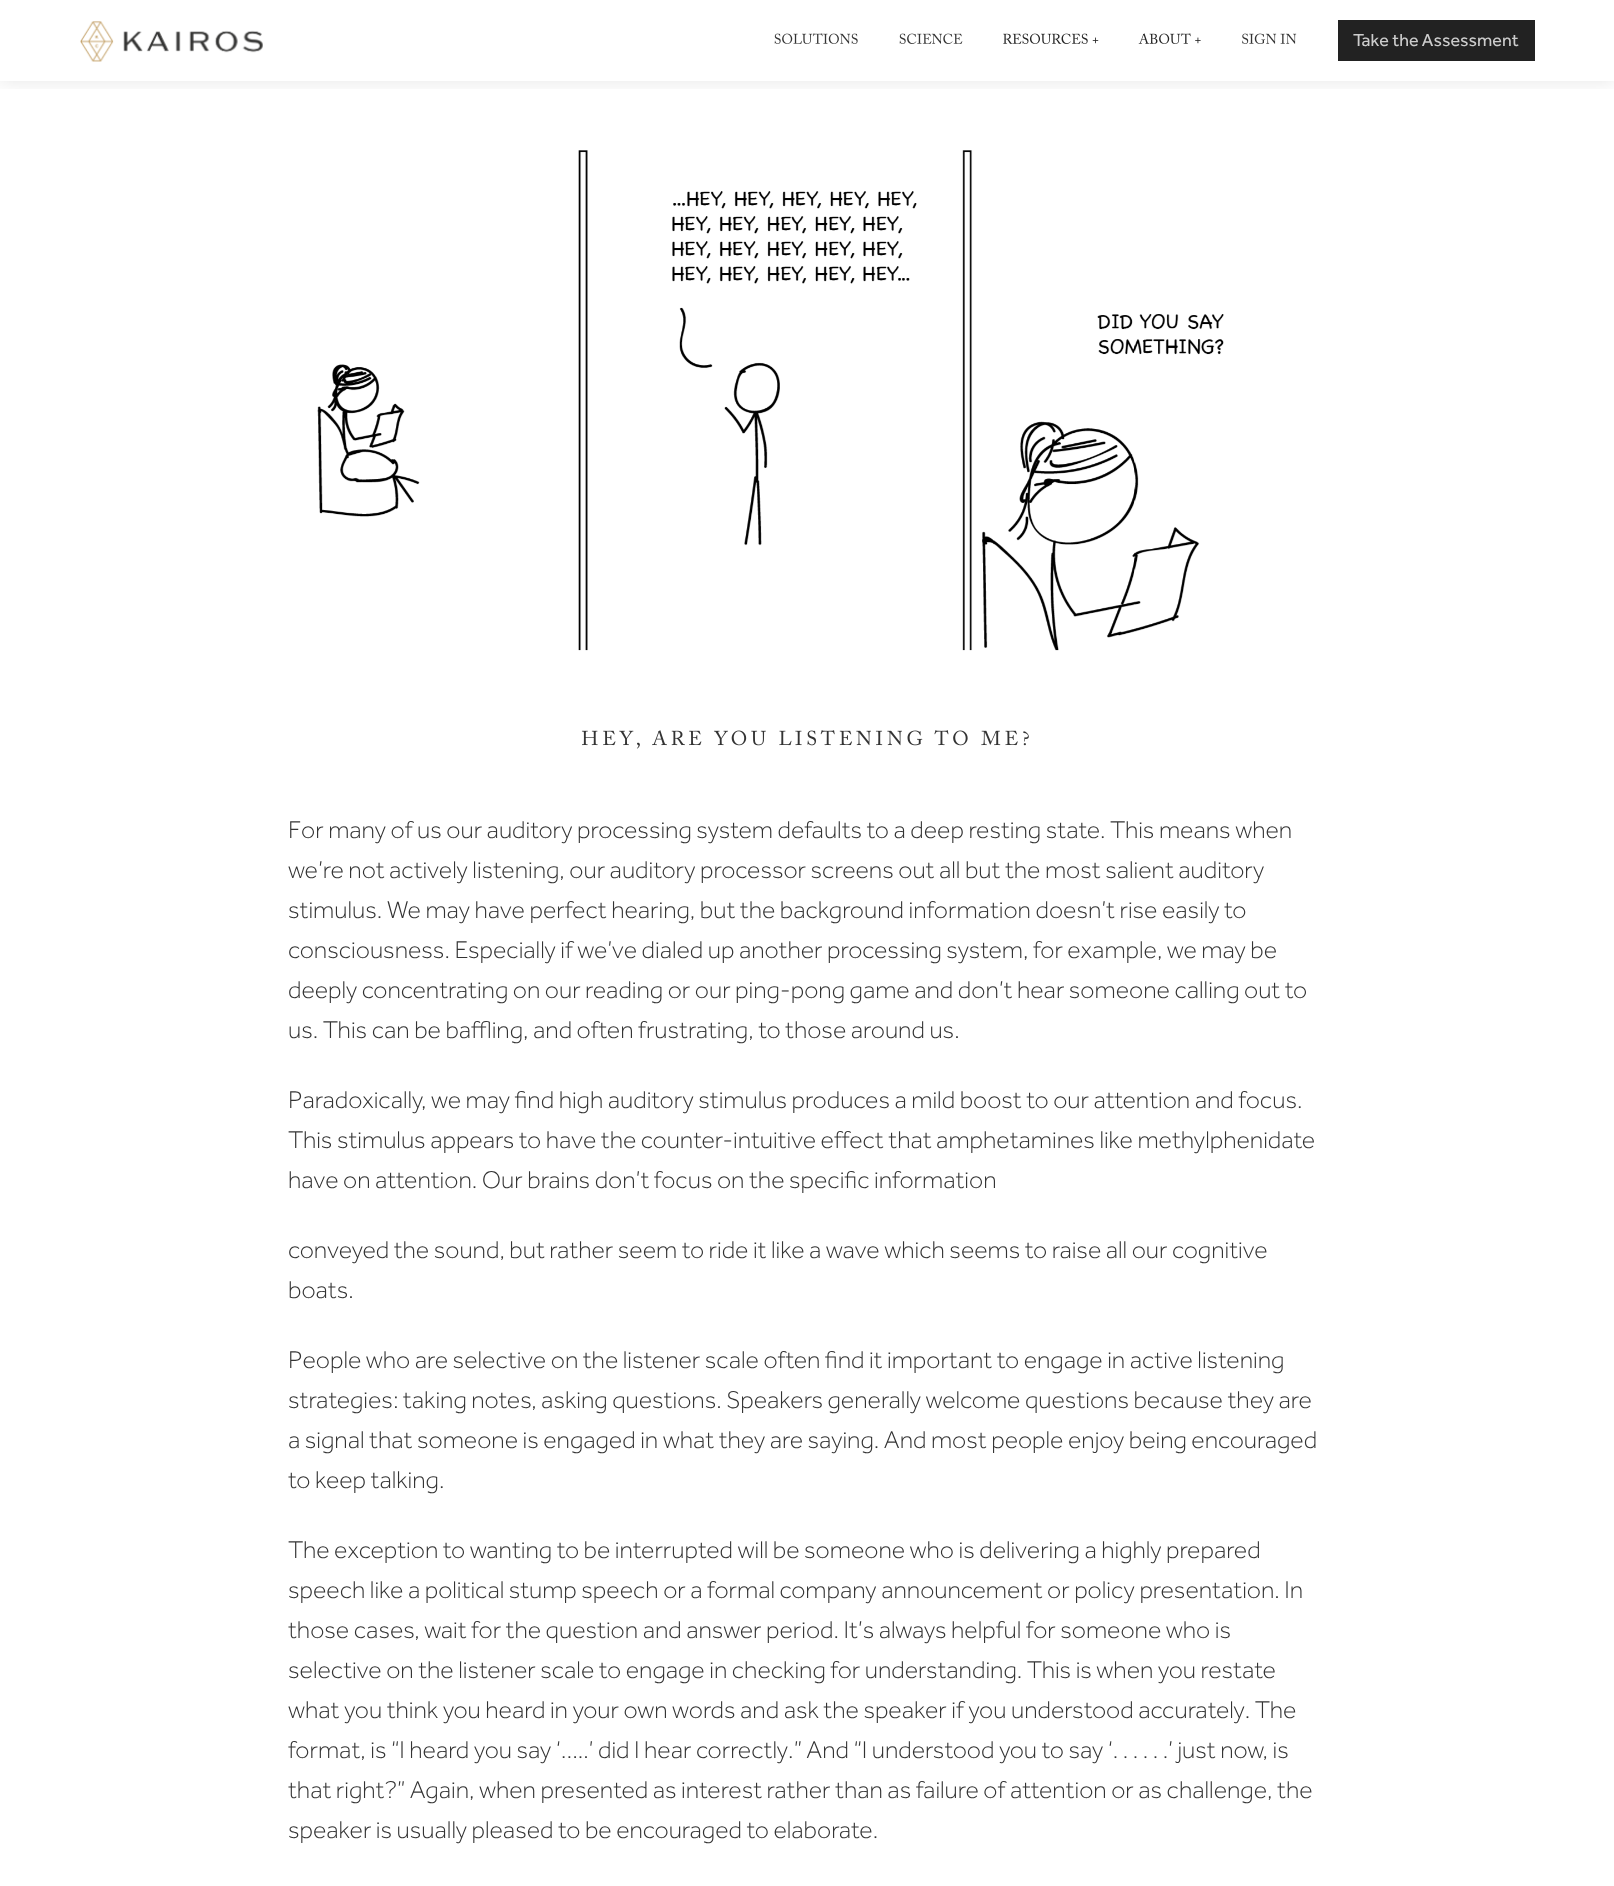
<!DOCTYPE html>
<meta charset="utf-8">
<style>body { margin: 0 } canvas { display: block }</style>
<canvas id="canvas" width="1614" height="1886"></canvas>
<img id="img1" src="img_01.png" hidden>
<img id="img2" src="img_02.png" hidden>
<img id="img3" src="img_03.png" hidden>
<img id="img4" src="img_04.png" hidden>
<img id="img5" src="img_05.png" hidden>
<img id="img6" src="img_06.png" hidden>
<img id="img7" src="img_07.png" hidden>
<img id="img8" src="img_08.png" hidden>
<script>
window.onload = function () {
	const canvas = document.getElementById("canvas");
	const ctx = canvas.getContext("2d");
	ctx.miterLimit = 4;
	ctx.fontKerning = "normal";
	function txt(s, x, y) {
		ctx.fillText(s, x, y);
	}
	function fill(x, y, w, h) {
		ctx.fillRect(x, y, w, h);
	}
	function img(id, x, y, w, h) {
		ctx.drawImage(document.getElementById(id), x, y, w, h);
	}

	ctx.fillStyle = "#FFFFFF";
	fill(0, 0, 1614, 1886);
	ctx.save();
	ctx.beginPath();
	ctx.rect(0, 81, 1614, 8);
	ctx.clip();
	ctx.fillStyle = "rgba(0, 0, 0, 0.1)";
	ctx.filter = "blur(10px)";
	ctx.beginPath();
	ctx.rect(0, 0, 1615, 81);
	ctx.fill();
	ctx.filter = "none";
	ctx.restore();
	img("img1", 80, 21, 183, 41);
	img("img2", 774, 33, 84, 11);
	img("img3", 899, 33, 64, 11);
	img("img4", 1003, 33, 96, 11);
	img("img5", 1138, 33, 63, 11);
	img("img6", 1242, 33, 55, 11);
	ctx.fillStyle = "#222222";
	fill(1338, 20, 197, 41);
	img("img7", 317, 150, 907, 501);
	img("img8", 581, 730, 448, 19);
	ctx.font = "18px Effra";
	ctx.fillStyle = "#CCCCCC";
	txt("Take the Assessment", 1353, 46);
	ctx.font = "300 25px Effra";
	ctx.fillStyle = "#333333";
	txt("For many of us our auditory processing system defaults to a deep resting state. This means when", 288, 838);
	txt("we’re not actively listening, our auditory processor screens out all but the most salient auditory", 288, 878);
	txt("stimulus. We may have perfect hearing, but the background information doesn’t rise easily to", 288, 918);
	txt("consciousness. Especially if we’ve dialed up another processing system, for example, we may be", 288, 958);
	txt("deeply concentrating on our reading or our ping-pong game and don’t hear someone calling out to", 288, 998);
	txt("us. This can be baffling, and often frustrating, to those around us.", 288, 1038);
	txt("Paradoxically, we may find high auditory stimulus produces a mild boost to our attention and focus.", 288, 1108);
	txt("This stimulus appears to have the counter-intuitive effect that amphetamines like methylphenidate", 288, 1148);
	txt("have on attention. Our brains don’t focus on the specific information", 288, 1188);
	txt("conveyed the sound, but rather seem to ride it like a wave which seems to raise all our cognitive", 288, 1258);
	txt("boats.", 288, 1298);
	txt("People who are selective on the listener scale often find it important to engage in active listening", 288, 1368);
	txt("strategies: taking notes, asking questions. Speakers generally welcome questions because they are", 288, 1408);
	txt("a signal that someone is engaged in what they are saying. And most people enjoy being encouraged", 288, 1448);
	txt("to keep talking.", 288, 1488);
	txt("The exception to wanting to be interrupted will be someone who is delivering a highly prepared", 288, 1558);
	txt("speech like a political stump speech or a formal company announcement or policy presentation. In", 288, 1598);
	txt("those cases, wait for the question and answer period. It’s always helpful for someone who is", 288, 1638);
	txt("selective on the listener scale to engage in checking for understanding. This is when you restate", 288, 1678);
	txt("what you think you heard in your own words and ask the speaker if you understood accurately. The", 288, 1718);
	txt("format, is “I heard you say ‘…..’ did I hear correctly.” And “I understood you to say ‘. . . . . .’ just now, is", 288, 1758);
	txt("that right?” Again, when presented as interest rather than as failure of attention or as challenge, the", 288, 1798);
	txt("speaker is usually pleased to be encouraged to elaborate.", 288, 1838);
};
</script>
